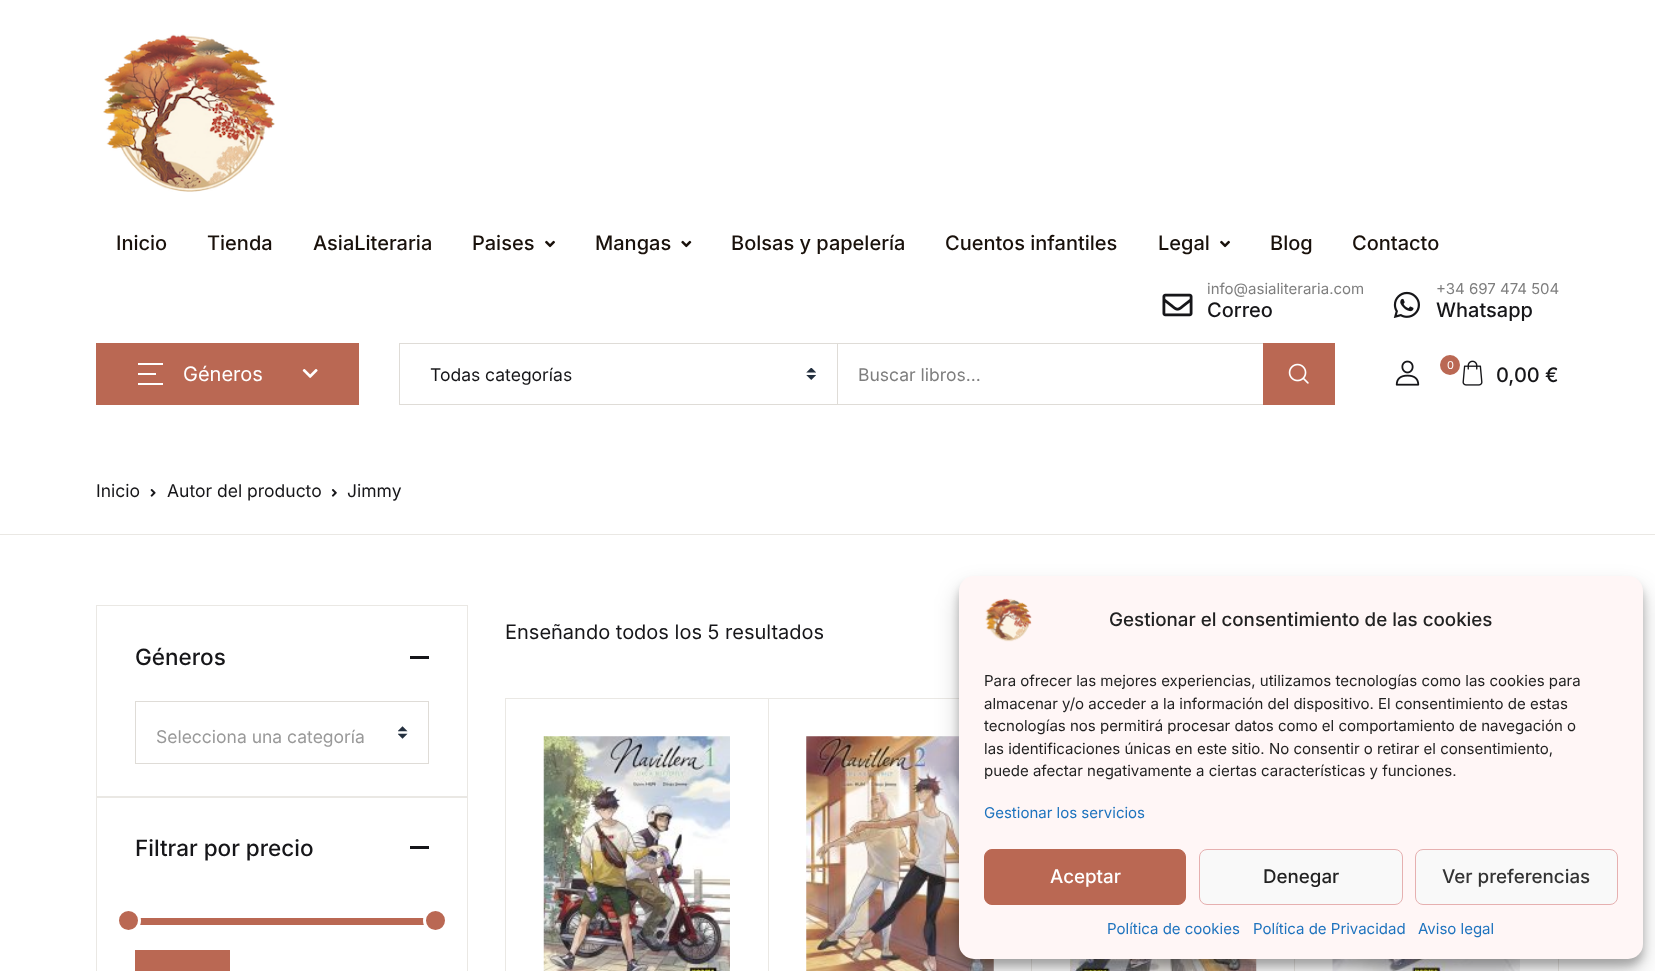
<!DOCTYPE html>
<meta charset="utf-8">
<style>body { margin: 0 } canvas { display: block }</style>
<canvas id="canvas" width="1655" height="971"></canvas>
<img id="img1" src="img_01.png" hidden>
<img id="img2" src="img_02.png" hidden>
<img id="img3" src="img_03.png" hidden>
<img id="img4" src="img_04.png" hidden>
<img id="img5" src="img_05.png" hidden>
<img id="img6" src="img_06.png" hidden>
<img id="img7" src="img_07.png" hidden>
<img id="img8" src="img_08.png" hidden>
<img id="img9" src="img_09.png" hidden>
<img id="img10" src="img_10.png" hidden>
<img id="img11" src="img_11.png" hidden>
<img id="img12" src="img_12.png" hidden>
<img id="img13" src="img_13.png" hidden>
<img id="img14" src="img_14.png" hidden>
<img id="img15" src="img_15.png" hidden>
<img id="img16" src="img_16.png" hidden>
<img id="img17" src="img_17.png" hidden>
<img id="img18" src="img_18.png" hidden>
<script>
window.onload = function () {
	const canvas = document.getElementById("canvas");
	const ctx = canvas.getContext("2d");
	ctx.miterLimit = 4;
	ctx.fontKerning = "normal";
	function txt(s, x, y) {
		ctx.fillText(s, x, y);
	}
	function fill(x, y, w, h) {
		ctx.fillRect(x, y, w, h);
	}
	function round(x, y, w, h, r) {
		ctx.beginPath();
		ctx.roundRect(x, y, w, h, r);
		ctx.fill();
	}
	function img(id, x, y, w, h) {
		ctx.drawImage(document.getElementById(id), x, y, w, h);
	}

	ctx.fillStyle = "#FFFFFF";
	fill(0, 0, 1655, 971);
	img("img1", 103, 34, 172, 158);
	img("img2", 545, 240, 10, 8);
	img("img3", 681, 240, 11, 8);
	img("img2", 1220, 240, 10, 8);
	img("img4", 1162, 293, 31, 24);
	img("img5", 1393, 291, 27, 27);
	ctx.fillStyle = "#BA6853";
	fill(96, 343, 263, 62);
	ctx.fillStyle = "#FFFFFF";
	fill(138, 363, 25, 2);
	fill(138, 373, 18, 2);
	fill(138, 383, 25, 2);
	img("img6", 302, 369, 16, 9);
	img("img7", 806, 368, 10, 12);
	ctx.fillStyle = "#DFDCD7";
	fill(836, 343, 427, 1);
	fill(836, 404, 427, 1);
	ctx.strokeStyle = "#DFDCD7";
	ctx.strokeRect(399.5, 343.5, 438, 61);
	ctx.fillStyle = "#BA6853";
	fill(1263, 343, 72, 62);
	img("img8", 1288, 363, 21, 21);
	img("img9", 1395, 360, 25, 26);
	ctx.beginPath();
	ctx.arc(1450, 365, 10, 0, Math.PI * 2);
	ctx.fill();
	img("img10", 1462, 360, 21, 26);
	ctx.fillStyle = "#EAE8E4";
	fill(0, 534, 1655, 1);
	img("img11", 150, 489, 6, 8);
	img("img12", 331, 489, 6, 8);
	fill(505, 698, 454, 1);
	fill(505, 698, 1, 273);
	fill(768, 699, 1, 272);
	img("img13", 543, 736, 187, 235);
	fill(1031, 959, 1, 12);
	img("img14", 806, 736, 188, 235);
	fill(1294, 959, 1, 12);
	img("img15", 1070, 959, 187, 12);
	fill(1558, 959, 1, 12);
	img("img16", 1332, 959, 188, 12);
	ctx.strokeStyle = "#EAE8E4";
	ctx.strokeRect(96.5, 605.5, 371, 192);
	ctx.fillStyle = "#161619";
	fill(410, 656, 19, 3);
	img("img17", 398, 726, 10, 13);
	ctx.strokeStyle = "#DFDCD7";
	ctx.strokeRect(135.5, 701.5, 293, 62);
	ctx.strokeStyle = "#EAE8E4";
	ctx.strokeRect(96.5, 796.5, 371, 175);
	fill(410, 846, 19, 3);
	ctx.fillStyle = "#BA6853";
	fill(135, 918, 294, 7);
	ctx.beginPath();
	ctx.arc(128.5, 920.5, 11, 0, Math.PI * 2);
	ctx.fill();
	ctx.strokeStyle = "#FFFFFF";
	ctx.lineWidth = 3;
	ctx.stroke();
	ctx.beginPath();
	ctx.arc(435.5, 920.5, 11, 0, Math.PI * 2);
	ctx.fill();
	ctx.stroke();
	fill(135, 950, 95, 21);
	ctx.fillStyle = "rgba(0, 0, 0, 0.23)";
	ctx.filter = "blur(4px)";
	ctx.beginPath();
	ctx.roundRect(959, 584, 684, 382, 15);
	ctx.fill();
	ctx.filter = "none";
	ctx.fillStyle = "rgba(0, 0, 0, 0.19)";
	ctx.filter = "blur(12.5px)";
	ctx.beginPath();
	ctx.roundRect(959, 589, 684, 382, 15);
	ctx.fill();
	ctx.filter = "none";
	ctx.fillStyle = "#FFF6F6";
	round(959, 576, 684, 383, 15);
	img("img18", 985, 598, 47, 44);
	ctx.fillStyle = "#BA6853";
	ctx.beginPath();
	ctx.roundRect(984.5, 849.5, 201, 55, 7.5);
	ctx.fill();
	ctx.strokeStyle = "#BA6853";
	ctx.lineWidth = 1;
	ctx.stroke();
	ctx.fillStyle = "#F9F9F9";
	ctx.beginPath();
	ctx.roundRect(1199.5, 849.5, 203, 55, 7.5);
	ctx.fill();
	ctx.strokeStyle = "#E6B0B0";
	ctx.stroke();
	ctx.beginPath();
	ctx.roundRect(1415.5, 849.5, 202, 55, 7.5);
	ctx.fill();
	ctx.stroke();
	ctx.font = "500 20px Inter";
	ctx.fillStyle = "#19110B";
	txt("Inicio", 116, 250);
	txt("Tienda", 207, 250);
	txt("AsiaLiteraria", 313, 250);
	txt("Paises", 472, 250);
	txt("Mangas", 595, 250);
	txt("Bolsas y papelería", 731, 250);
	txt("Cuentos infantiles", 945, 250);
	txt("Legal", 1158, 250);
	txt("Blog", 1270, 250);
	txt("Contacto", 1352, 250);
	ctx.font = "15px Inter";
	ctx.fillStyle = "#7E7E7E";
	txt("info@asialiteraria.com", 1207, 294);
	ctx.font = "500 20px Inter";
	ctx.fillStyle = "#161619";
	txt("Correo", 1207, 317);
	ctx.font = "15px Inter";
	ctx.fillStyle = "#7E7E7E";
	txt("+34 697 474 504", 1436, 294);
	ctx.font = "500 20px Inter";
	ctx.fillStyle = "#161619";
	txt("Whatsapp", 1436, 317);
	ctx.font = "20px Inter";
	ctx.fillStyle = "#FFFFFF";
	txt("Géneros", 183, 381);
	ctx.font = "17.5px Inter";
	ctx.fillStyle = "#161619";
	txt("Todas categorías", 430, 381);
	ctx.fillStyle = "#7E7E7E";
	txt("Buscar libros...", 858, 381);
	ctx.font = "11px Inter";
	ctx.fillStyle = "#FFFFFF";
	txt("0", 1447, 369);
	ctx.font = "500 20px Inter";
	ctx.fillStyle = "#161619";
	txt("0,00 €", 1496, 382);
	ctx.font = "17.5px Inter";
	txt("Inicio", 96, 497);
	txt("Autor del producto", 167, 497);
	txt("Jimmy", 347, 497);
	ctx.font = "20px Inter";
	txt("Enseñando todos los 5 resultados", 505, 639);
	ctx.font = "500 22.5px Inter";
	txt("Géneros", 135, 665);
	ctx.font = "17.5px Inter";
	ctx.fillStyle = "#999999";
	txt("Selecciona una categoría", 156, 743);
	ctx.font = "500 22.5px Inter";
	ctx.fillStyle = "#161619";
	txt("Filtrar por precio", 135, 856);
	ctx.font = "500 18.75px Inter";
	ctx.fillStyle = "#222222";
	txt("Gestionar el consentimiento de las cookies", 1109, 626);
	ctx.font = "15px Inter";
	txt("Para ofrecer las mejores experiencias, utilizamos tecnologías como las cookies para", 984, 686);
	txt("almacenar y/o acceder a la información del dispositivo. El consentimiento de estas", 984, 709);
	txt("tecnologías nos permitirá procesar datos como el comportamiento de navegación o", 984, 731);
	txt("las identificaciones únicas en este sitio. No consentir o retirar el consentimiento,", 984, 754);
	txt("puede afectar negativamente a ciertas características y funciones.", 984, 776);
	ctx.fillStyle = "#1E73BE";
	txt("Gestionar los servicios", 984, 818);
	ctx.font = "500 18.75px Inter";
	ctx.fillStyle = "#FFFFFF";
	txt("Aceptar", 1050, 883);
	ctx.fillStyle = "#222222";
	txt("Denegar", 1263, 883);
	ctx.fillStyle = "#333333";
	txt("Ver preferencias", 1442, 883);
	ctx.font = "15px Inter";
	ctx.fillStyle = "#1E73BE";
	txt("Política de cookies", 1107, 934);
	txt("Política de Privacidad", 1253, 934);
	txt("Aviso legal", 1418, 934);
};
</script>
